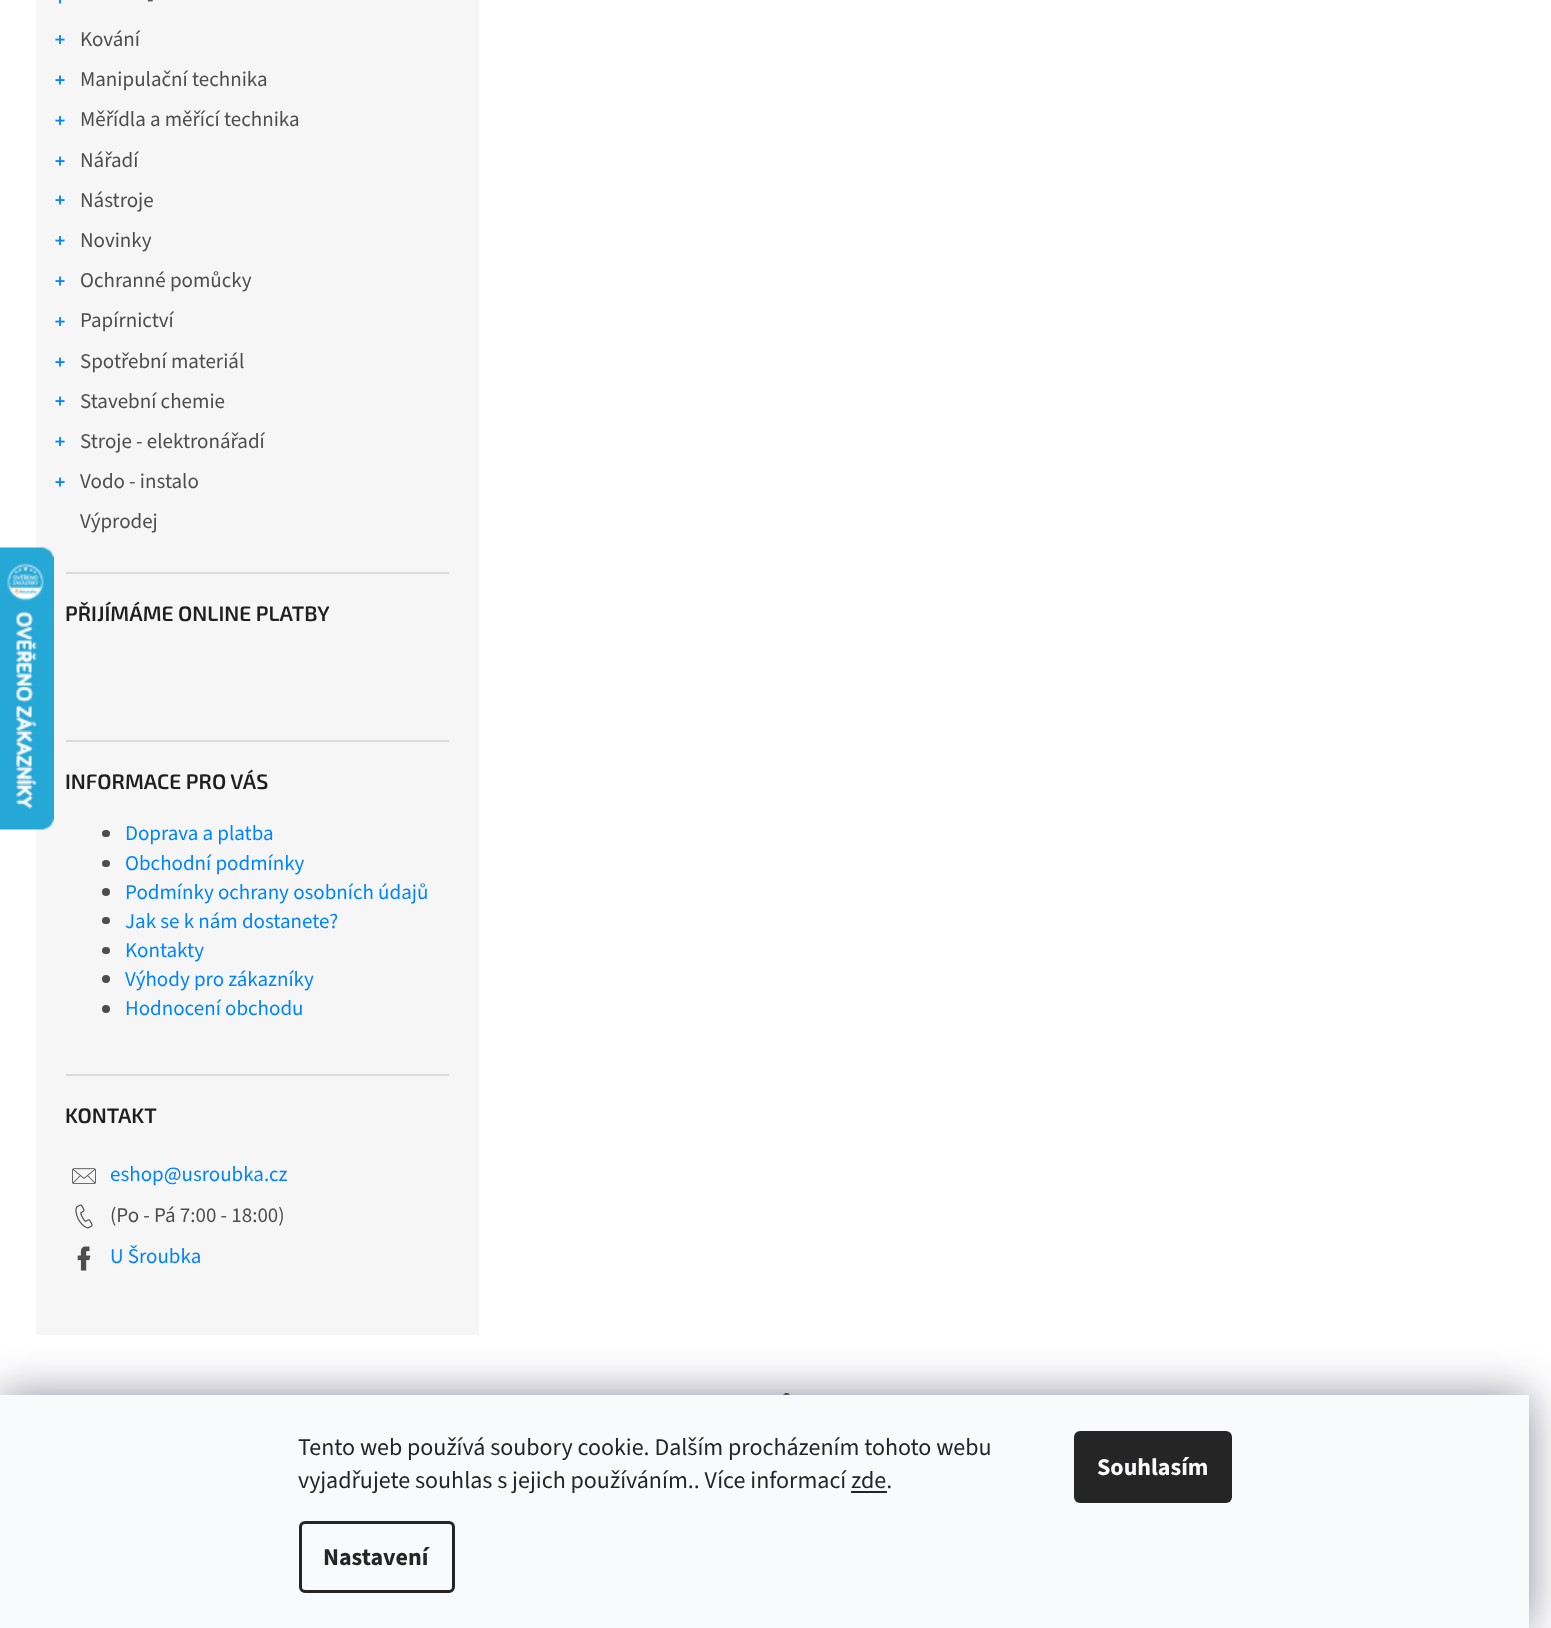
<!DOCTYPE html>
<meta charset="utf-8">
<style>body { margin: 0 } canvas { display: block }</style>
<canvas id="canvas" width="1551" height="1628"></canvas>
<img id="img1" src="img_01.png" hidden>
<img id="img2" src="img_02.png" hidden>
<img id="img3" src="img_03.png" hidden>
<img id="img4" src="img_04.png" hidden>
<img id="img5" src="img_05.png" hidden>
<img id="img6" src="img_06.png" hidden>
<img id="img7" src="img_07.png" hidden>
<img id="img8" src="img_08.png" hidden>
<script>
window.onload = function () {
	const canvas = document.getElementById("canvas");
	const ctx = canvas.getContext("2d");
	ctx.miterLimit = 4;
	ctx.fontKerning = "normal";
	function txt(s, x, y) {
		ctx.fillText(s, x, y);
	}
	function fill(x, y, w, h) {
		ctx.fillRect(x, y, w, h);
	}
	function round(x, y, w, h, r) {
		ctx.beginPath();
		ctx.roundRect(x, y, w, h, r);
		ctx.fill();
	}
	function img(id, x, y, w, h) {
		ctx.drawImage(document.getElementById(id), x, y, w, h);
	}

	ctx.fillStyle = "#FFFFFF";
	fill(0, 0, 1551, 1628);
	ctx.fillStyle = "#F6F6F6";
	fill(36, 0, 443, 1335);
	img("img1", 0, 547, 54, 283);
	ctx.fillStyle = "#DADADA";
	fill(66, 572, 383, 2);
	img("img2", 59, 0, 2, 4);
	img("img3", 55, 35, 10, 10);
	img("img4", 55, 75, 10, 10);
	img("img3", 55, 116, 10, 10);
	img("img4", 55, 156, 10, 10);
	img("img4", 55, 195, 10, 10);
	img("img3", 55, 236, 10, 10);
	img("img4", 55, 276, 10, 10);
	img("img3", 55, 317, 10, 10);
	img("img4", 55, 357, 10, 10);
	img("img4", 55, 396, 10, 10);
	img("img3", 55, 437, 10, 10);
	img("img4", 55, 477, 10, 10);
	fill(66, 740, 383, 2);
	fill(66, 1074, 383, 2);
	ctx.fillStyle = "#4D4D4D";
	round(102, 830, 8, 7, 3.5);
	round(102, 860, 8, 7, 3.5);
	ctx.beginPath();
	ctx.arc(106, 892, 4, 0, Math.PI * 2);
	ctx.fill();
	round(102, 917, 8, 7, 3.5);
	round(102, 947, 8, 7, 3.5);
	ctx.beginPath();
	ctx.arc(106, 979, 4, 0, Math.PI * 2);
	ctx.fill();
	ctx.beginPath();
	ctx.arc(106, 1009, 4, 0, Math.PI * 2);
	ctx.fill();
	img("img5", 72, 1168, 24, 16);
	img("img6", 75, 1204, 18, 25);
	img("img7", 77, 1246, 14, 25);
	img("img8", 782, 1393, 9, 2);
	ctx.fillStyle = "rgba(27, 25, 57, 0.5)";
	ctx.filter = "blur(22.5px)";
	ctx.beginPath();
	ctx.rect(0, 1395, 1529, 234);
	ctx.fill();
	ctx.filter = "none";
	ctx.fillStyle = "#F8FAFB";
	fill(0, 1395, 1529, 233);
	ctx.fillStyle = "#252525";
	fill(851, 1491, 36, 2);
	ctx.beginPath();
	ctx.roundRect(300.5, 1522.5, 153, 69, 4.5);
	ctx.strokeStyle = "#252525";
	ctx.lineWidth = 3;
	ctx.stroke();
	round(1074, 1431, 158, 72, 6);
	ctx.font = "21px 'Source Sans 3'";
	ctx.fillStyle = "#4D4D4D";
	txt("-", 147, 6);
	txt("Kování", 80, 46);
	txt("Manipulační technika", 80, 86);
	txt("Měřídla a měřící technika", 80, 126);
	txt("Nářadí", 80, 167);
	txt("Nástroje", 80, 207);
	txt("Novinky", 80, 247);
	txt("Ochranné pomůcky", 80, 287);
	txt("Papírnictví", 80, 327);
	txt("Spotřební materiál", 80, 368);
	txt("Stavební chemie", 80, 408);
	txt("Stroje - elektronářadí", 80, 448);
	txt("Vodo - instalo", 80, 488);
	txt("Výprodej", 80, 528);
	ctx.font = "600 21px 'Exo 2'";
	ctx.fillStyle = "#1F1F1F";
	txt("PŘIJÍMÁME ONLINE PLATBY", 65, 621);
	txt("INFORMACE PRO VÁS", 65, 789);
	ctx.font = "21px 'Source Sans 3'";
	ctx.fillStyle = "#0084FF";
	txt("Doprava a platba", 125, 840);
	txt("Obchodní podmínky", 125, 870);
	txt("Podmínky ochrany osobních údajů", 125, 899);
	txt("Jak se k nám dostanete?", 125, 928);
	txt("Kontakty", 125, 957);
	txt("Výhody pro zákazníky", 125, 986);
	txt("Hodnocení obchodu", 125, 1015);
	ctx.font = "600 21px 'Exo 2'";
	ctx.fillStyle = "#1F1F1F";
	txt("KONTAKT", 65, 1123);
	ctx.font = "21px 'Source Sans 3'";
	ctx.fillStyle = "#0084FF";
	txt("eshop@usroubka.cz", 110, 1181);
	ctx.fillStyle = "#4D4D4D";
	txt("(Po - Pá 7:00 - 18:00)", 110, 1222);
	ctx.fillStyle = "#0084FF";
	txt("U Šroubka", 110, 1263);
	ctx.font = "24px 'Source Sans 3'";
	ctx.fillStyle = "#252525";
	txt("Tento web používá soubory cookie. Dalším procházením tohoto webu", 298, 1455);
	txt("vyjadřujete souhlas s jejich používáním.. Více informací zde.", 298, 1488);
	ctx.font = "bold 24px 'Source Sans 3'";
	txt("Nastavení", 323, 1565);
	ctx.fillStyle = "#F8FAFB";
	txt("Souhlasím", 1097, 1475);
};
</script>
